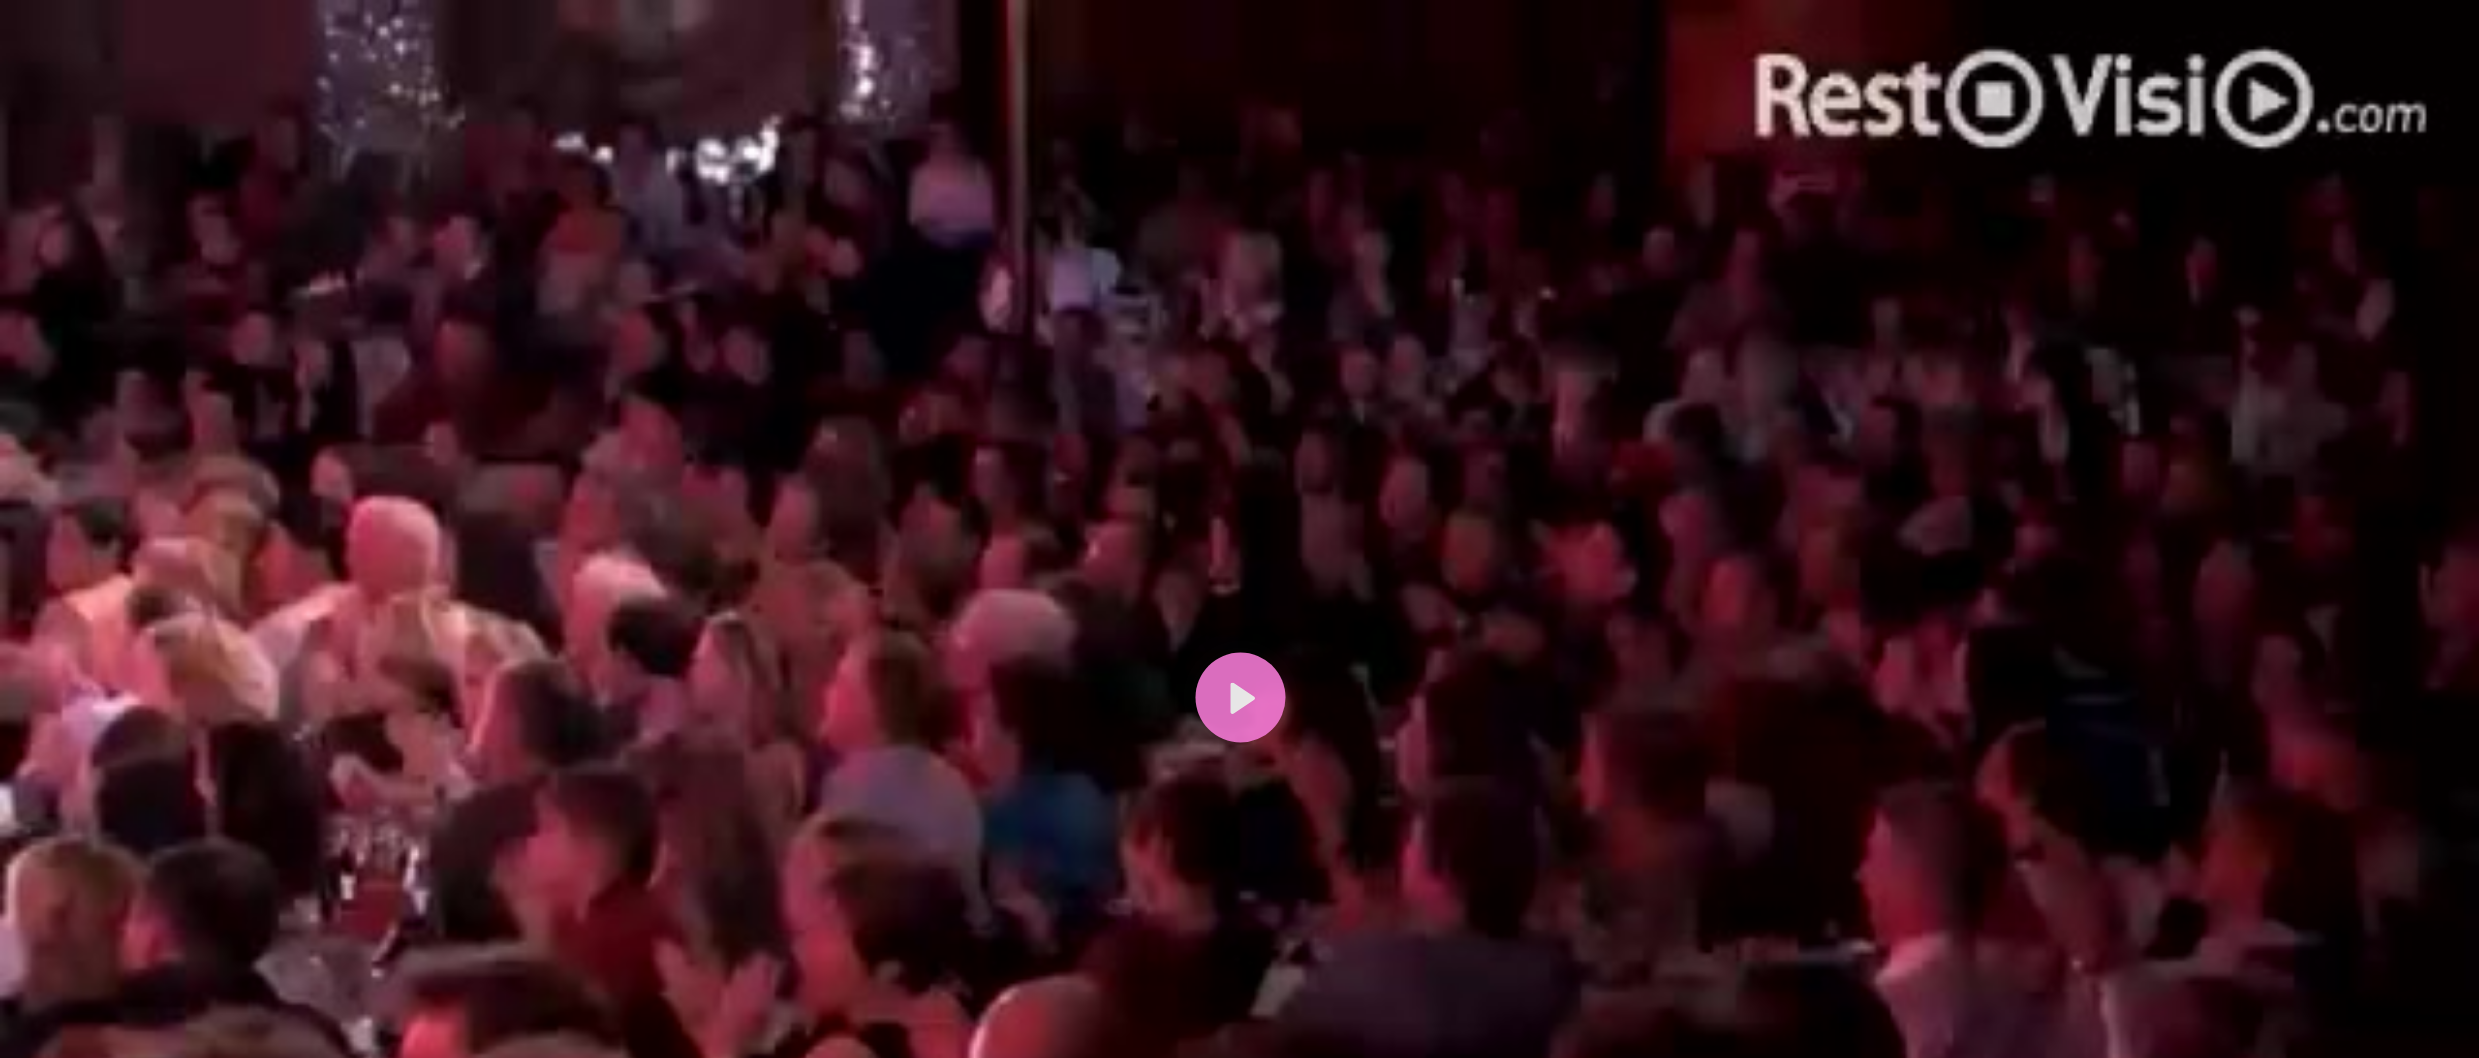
<!DOCTYPE html>
<meta charset="utf-8">
<style>body { margin: 0 } canvas { display: block }</style>
<canvas id="canvas" width="2479" height="1058"></canvas>
<img id="img1" src="img_01.png" hidden>
<script>
window.onload = function () {
	const canvas = document.getElementById("canvas");
	const ctx = canvas.getContext("2d");
	ctx.miterLimit = 4;
	ctx.fontKerning = "normal";
	function fill(x, y, w, h) {
		ctx.fillRect(x, y, w, h);
	}
	function img(id, x, y, w, h) {
		ctx.drawImage(document.getElementById(id), x, y, w, h);
	}

	ctx.fillStyle = "#FFFFFF";
	fill(0, 0, 2479, 1058);
	img("img1", 0, 0, 2479, 1058);
};
</script>
